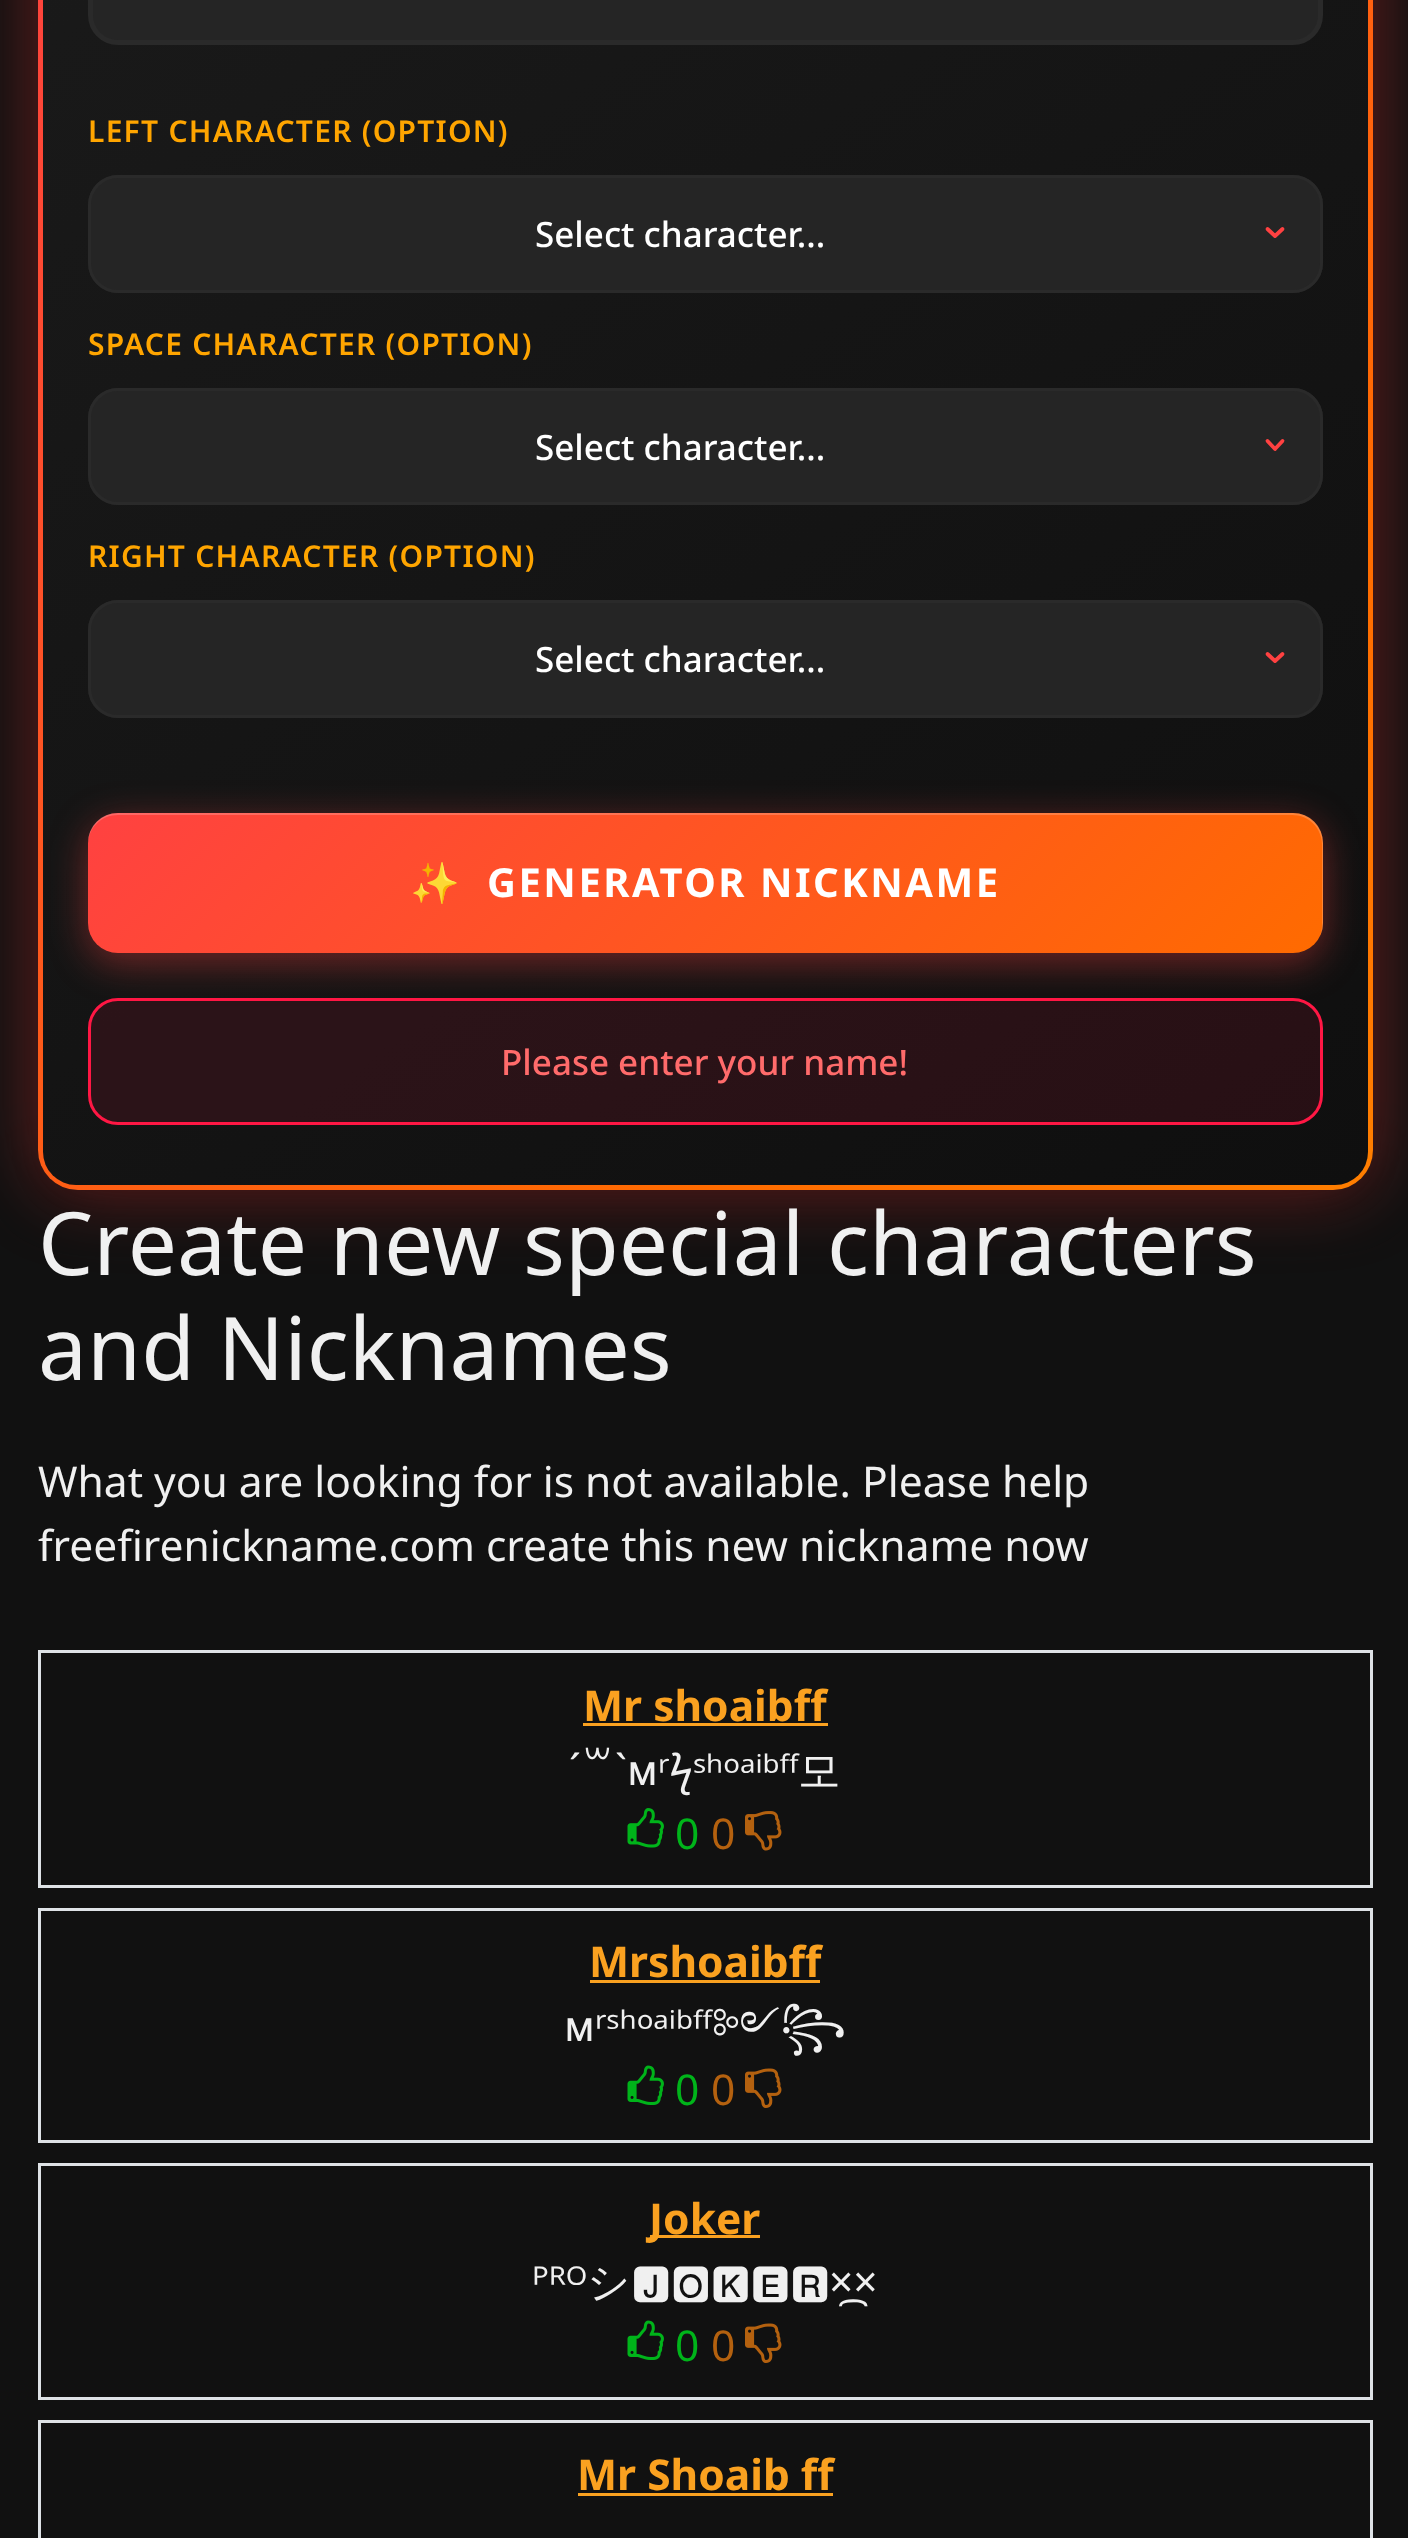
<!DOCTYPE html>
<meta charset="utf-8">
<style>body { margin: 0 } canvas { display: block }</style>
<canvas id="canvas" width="1408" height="2538"></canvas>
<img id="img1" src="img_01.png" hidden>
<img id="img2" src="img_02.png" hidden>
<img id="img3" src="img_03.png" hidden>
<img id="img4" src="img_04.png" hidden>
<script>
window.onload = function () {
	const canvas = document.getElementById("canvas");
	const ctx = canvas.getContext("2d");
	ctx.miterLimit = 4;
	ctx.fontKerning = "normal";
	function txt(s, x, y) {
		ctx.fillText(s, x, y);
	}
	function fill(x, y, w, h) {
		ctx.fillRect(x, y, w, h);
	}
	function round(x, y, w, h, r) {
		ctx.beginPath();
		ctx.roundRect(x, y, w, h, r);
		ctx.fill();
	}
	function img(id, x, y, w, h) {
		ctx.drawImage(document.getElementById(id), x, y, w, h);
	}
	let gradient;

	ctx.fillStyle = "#111111";
	fill(0, 0, 1408, 2538);
	ctx.fillStyle = "rgba(0, 0, 0, 0.5)";
	ctx.filter = "blur(25px)";
	ctx.beginPath();
	ctx.roundRect(38, -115, 1335, 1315, 40);
	ctx.fill();
	ctx.filter = "none";
	ctx.fillStyle = "rgba(255, 65, 65, 0.4)";
	ctx.filter = "blur(37.5px)";
	ctx.beginPath();
	ctx.roundRect(38, -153, 1335, 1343, 40);
	ctx.fill();
	ctx.filter = "none";
	gradient = ctx.createLinearGradient(21, -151, 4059, 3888);
	gradient.addColorStop(0, "#FF4141");
	gradient.addColorStop(0.25, "#FF6B00");
	gradient.addColorStop(0.5, "#FFA500");
	gradient.addColorStop(0.75, "#FF6B00");
	gradient.addColorStop(1, "#FF4141");
	ctx.fillStyle = gradient;
	round(38, -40, 1335, 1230, 40);
	gradient = ctx.createLinearGradient(170, -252, 1240, 1275);
	gradient.addColorStop(0, "#1A1A1A");
	gradient.addColorStop(1, "#0F0F0F");
	ctx.fillStyle = gradient;
	round(43, -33, 1325, 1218, 33);
	ctx.fillStyle = "#252525";
	ctx.beginPath();
	ctx.roundRect(90.5, -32.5, 1230, 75, 27.5);
	ctx.fill();
	ctx.strokeStyle = "#2A2A2A";
	ctx.lineWidth = 5;
	ctx.stroke();
	round(88, 175, 1235, 118, 30);
	ctx.beginPath();
	ctx.moveTo(1267.5, 229);
	ctx.lineTo(1275, 236);
	ctx.lineTo(1282.5, 229);
	ctx.strokeStyle = "#FF4141";
	ctx.lineWidth = 3.8;
	ctx.lineCap = "round";
	ctx.lineJoin = "round";
	ctx.stroke();
	ctx.beginPath();
	ctx.roundRect(89.5, 176.5, 1232, 115, 28.5);
	ctx.strokeStyle = "#2A2A2A";
	ctx.lineWidth = 3;
	ctx.lineJoin = "miter";
	ctx.stroke();
	round(88, 388, 1235, 117, 30);
	ctx.beginPath();
	ctx.moveTo(1267.5, 441);
	ctx.lineTo(1275, 449);
	ctx.lineTo(1282.5, 441);
	ctx.strokeStyle = "#FF4141";
	ctx.lineWidth = 3.8;
	ctx.lineJoin = "round";
	ctx.stroke();
	ctx.beginPath();
	ctx.roundRect(89.5, 389.5, 1232, 114, 28.5);
	ctx.strokeStyle = "#2A2A2A";
	ctx.lineWidth = 3;
	ctx.lineJoin = "miter";
	ctx.stroke();
	round(88, 600, 1235, 118, 30);
	ctx.beginPath();
	ctx.moveTo(1267.5, 654);
	ctx.lineTo(1275, 661);
	ctx.lineTo(1282.5, 654);
	ctx.strokeStyle = "#FF4141";
	ctx.lineWidth = 3.8;
	ctx.lineJoin = "round";
	ctx.stroke();
	ctx.beginPath();
	ctx.roundRect(89.5, 601.5, 1232, 115, 28.5);
	ctx.strokeStyle = "#2A2A2A";
	ctx.lineWidth = 3;
	ctx.lineJoin = "miter";
	ctx.stroke();
	ctx.fillStyle = "rgba(255, 23, 68, 0.1)";
	ctx.beginPath();
	ctx.roundRect(89.5, 999.5, 1232, 124, 28.5);
	ctx.fill();
	ctx.strokeStyle = "#FF1744";
	ctx.stroke();
	ctx.fillStyle = "rgba(255, 65, 65, 0.4)";
	ctx.filter = "blur(19px)";
	ctx.beginPath();
	ctx.roundRect(88, 823, 1235, 140, 30);
	ctx.fill();
	ctx.filter = "none";
	gradient = ctx.createLinearGradient(635, 265, 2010, 1640);
	gradient.addColorStop(0, "#FF4141");
	gradient.addColorStop(0.5, "#FF6B00");
	gradient.addColorStop(1, "#FFA500");
	ctx.fillStyle = gradient;
	round(88, 813, 1235, 140, 30);
	ctx.fillStyle = "rgba(255, 255, 255, 0.2)";
	ctx.beginPath();
	ctx.moveTo(118, 815);
	ctx.lineTo(1292, 815);
	ctx.bezierCurveTo(1309, 815, 1322, 828, 1322, 845);
	ctx.lineTo(1322, 925);
	ctx.bezierCurveTo(1322, 929, 1321, 933, 1320, 936);
	ctx.bezierCurveTo(1322, 932, 1323, 928, 1323, 923);
	ctx.lineTo(1323, 843);
	ctx.bezierCurveTo(1323, 826, 1310, 813, 1293, 813);
	ctx.lineTo(118, 813);
	ctx.bezierCurveTo(101, 813, 88, 826, 88, 843);
	ctx.lineTo(88, 845);
	ctx.bezierCurveTo(88, 828, 101, 815, 118, 815);
	ctx.closePath();
	ctx.fill();
	ctx.strokeStyle = "#DEE2E6";
	ctx.strokeRect(39.5, 1651.5, 1332, 235);
	ctx.fillStyle = "#FAA120";
	fill(583, 1723, 245, 3);
	img("img1", 627, 1808, 37, 40);
	img("img2", 745, 1811, 37, 40);
	ctx.strokeRect(39.5, 1909.5, 1332, 232);
	fill(590, 1980, 230, 3);
	img("img3", 627, 2065, 37, 40);
	img("img4", 745, 2068, 37, 40);
	ctx.strokeRect(39.5, 2164.5, 1332, 234);
	fill(650, 2235, 110, 3);
	img("img3", 627, 2320, 37, 40);
	img("img4", 745, 2323, 37, 40);
	ctx.strokeRect(39.5, 2421.5, 1332, 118);
	fill(578, 2493, 255, 3);
	ctx.letterSpacing = "1.25px";
	ctx.font = "600 30px Noto Sans";
	ctx.fillStyle = "#FFA500";
	txt("LEFT CHARACTER (OPTION)", 88, 142);
	ctx.letterSpacing = "0px";
	ctx.font = "500 35px Noto Sans";
	ctx.fillStyle = "#FFFFFF";
	txt("Select character...", 535, 247);
	ctx.letterSpacing = "1.25px";
	ctx.font = "600 30px Noto Sans";
	ctx.fillStyle = "#FFA500";
	txt("SPACE CHARACTER (OPTION)", 88, 355);
	ctx.letterSpacing = "0px";
	ctx.font = "500 35px Noto Sans";
	ctx.fillStyle = "#FFFFFF";
	txt("Select character...", 535, 460);
	ctx.letterSpacing = "1.25px";
	ctx.font = "600 30px Noto Sans";
	ctx.fillStyle = "#FFA500";
	txt("RIGHT CHARACTER (OPTION)", 88, 567);
	ctx.letterSpacing = "0px";
	ctx.font = "500 35px Noto Sans";
	ctx.fillStyle = "#FFFFFF";
	txt("Select character...", 535, 672);
	ctx.letterSpacing = "2.5px";
	ctx.font = "bold 40px Noto Color Emoji";
	txt("✨", 410, 897);
	ctx.font = "bold 40px Noto Sans";
	txt("GENERATOR NICKNAME", 487, 897);
	ctx.letterSpacing = "0px";
	ctx.font = "500 35px Noto Sans";
	ctx.fillStyle = "#FF6B6B";
	txt("Please enter your name!", 501, 1075);
	ctx.font = "87.5px Noto Sans";
	ctx.fillStyle = "#F0F0F0";
	txt("Create new special characters", 38, 1275);
	txt("and Nicknames", 38, 1380);
	ctx.font = "42.5px Noto Sans";
	txt("What you are looking for is not available. Please help", 38, 1497);
	txt("freefirenickname.com create this new nickname now", 38, 1561);
	ctx.font = "bold 42.5px Noto Sans";
	ctx.fillStyle = "#FAA120";
	txt("Mr shoaibff", 583, 1721);
	ctx.font = "42.5px Noto Sans";
	ctx.fillStyle = "#F0F0F0";
	txt("´", 569, 1785);
	ctx.font = "42.5px Nuosu SIL";
	txt("꒳", 581, 1785);
	ctx.font = "42.5px Noto Sans";
	txt("`ᴍʳϟˢʰᵒᵃⁱᵇᶠᶠ", 615, 1785);
	ctx.font = "500 42.5px WenQuanYi Zen Hei";
	txt("모", 798, 1785);
	ctx.font = "42.5px Noto Sans";
	ctx.fillStyle = "#00B41A";
	txt("0", 675, 1849);
	ctx.fillStyle = "#B4610F";
	txt("0", 711, 1849);
	ctx.font = "bold 42.5px Noto Sans";
	ctx.fillStyle = "#FAA120";
	txt("Mrshoaibff", 589, 1977);
	ctx.font = "42.5px Noto Sans";
	ctx.fillStyle = "#F0F0F0";
	txt("ᴍʳˢʰᵒᵃⁱᵇᶠᶠ", 564, 2041);
	ctx.font = "42.5px Noto Serif Tibetan";
	txt("༻", 712, 2041);
	ctx.font = "42.5px Noto Sans Javanese";
	txt("꧂", 780, 2041);
	ctx.font = "42.5px Noto Sans";
	ctx.fillStyle = "#00B41A";
	txt("0", 675, 2105);
	ctx.fillStyle = "#B4610F";
	txt("0", 711, 2105);
	ctx.font = "bold 42.5px Noto Sans";
	ctx.fillStyle = "#FAA120";
	txt("Joker", 649, 2234);
	ctx.font = "42.5px Noto Sans";
	ctx.fillStyle = "#F0F0F0";
	txt("ᴾᴿᴼ", 532, 2297);
	ctx.font = "500 42.5px WenQuanYi Zen Hei";
	txt("シ", 587, 2297);
	ctx.font = "42.5px FreeSans";
	txt("🅹🅾🅺🅴🆁", 631, 2297);
	ctx.font = "42.5px Noto Sans";
	txt("×᷼×", 829, 2297);
	ctx.fillStyle = "#00B41A";
	txt("0", 675, 2361);
	ctx.fillStyle = "#B4610F";
	txt("0", 711, 2361);
	ctx.font = "bold 42.5px Noto Sans";
	ctx.fillStyle = "#FAA120";
	txt("Mr Shoaib ff", 577, 2490);
};
</script>
